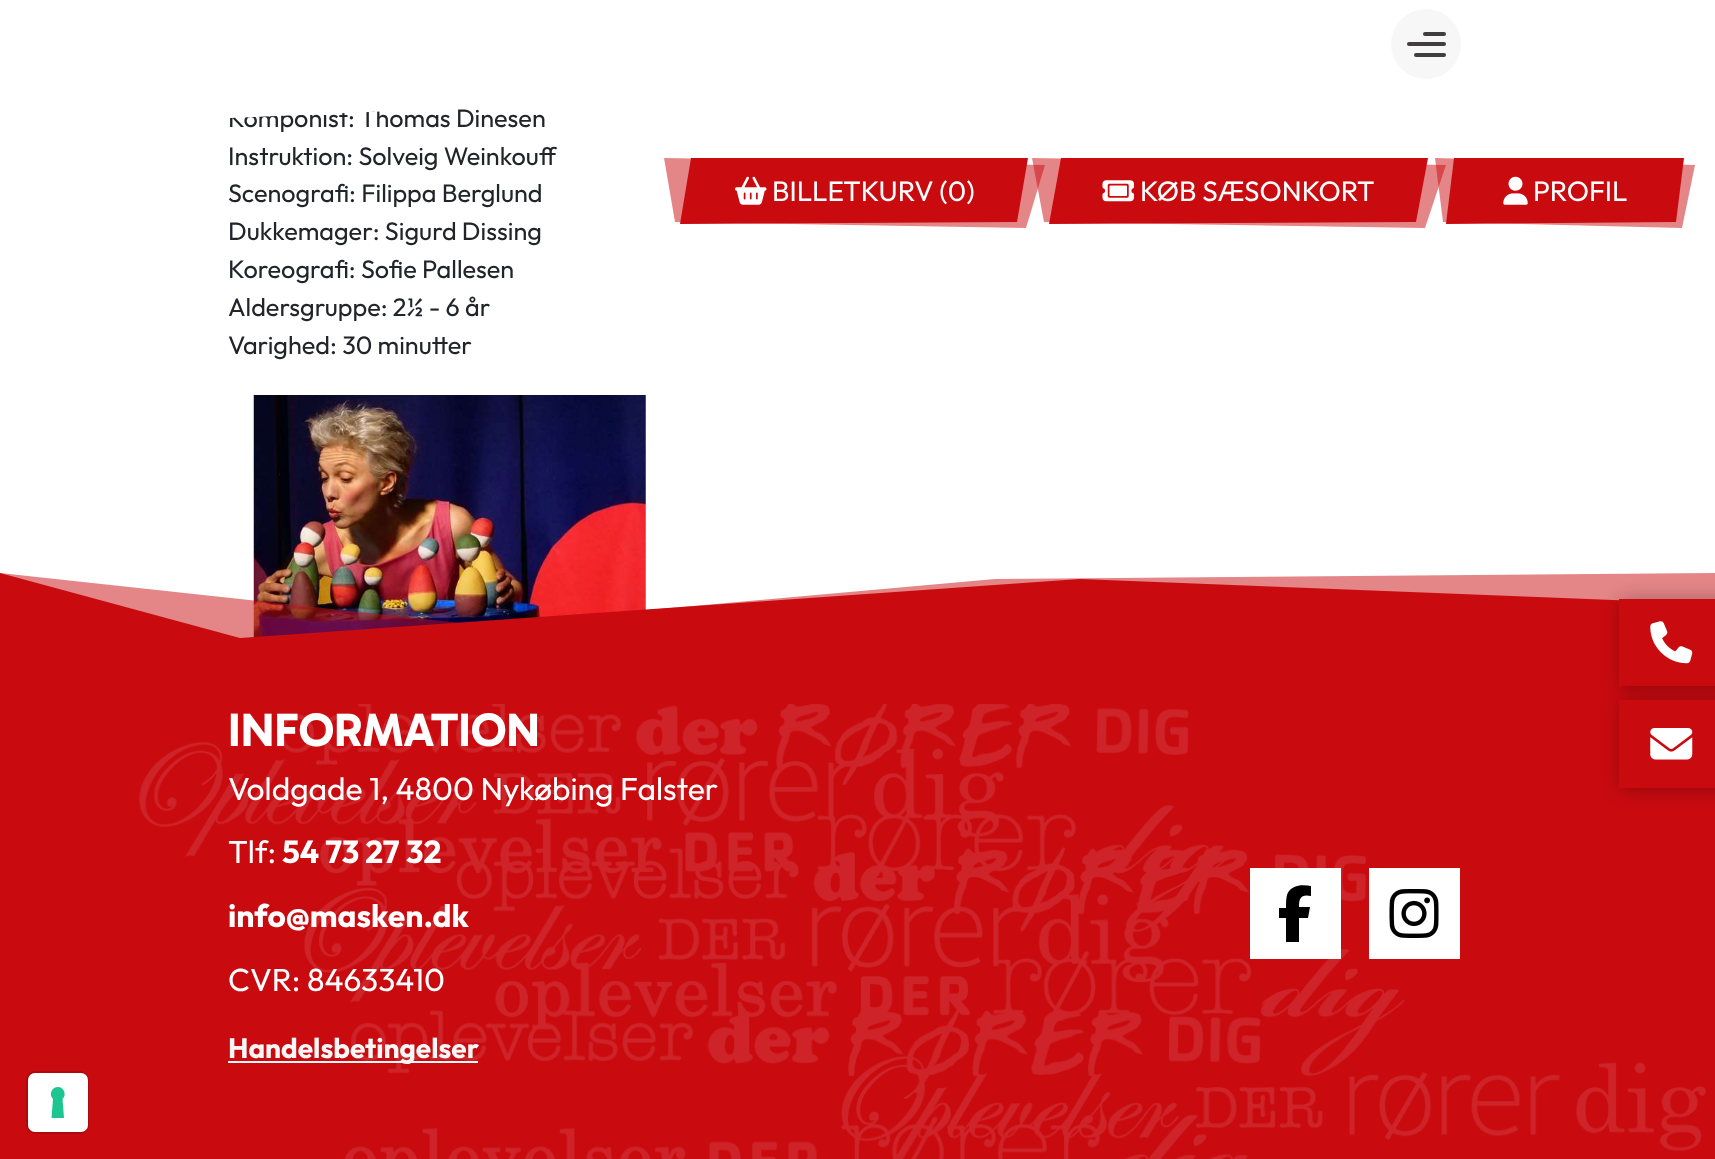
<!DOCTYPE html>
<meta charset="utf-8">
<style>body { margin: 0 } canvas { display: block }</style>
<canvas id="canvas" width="1715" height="1159"></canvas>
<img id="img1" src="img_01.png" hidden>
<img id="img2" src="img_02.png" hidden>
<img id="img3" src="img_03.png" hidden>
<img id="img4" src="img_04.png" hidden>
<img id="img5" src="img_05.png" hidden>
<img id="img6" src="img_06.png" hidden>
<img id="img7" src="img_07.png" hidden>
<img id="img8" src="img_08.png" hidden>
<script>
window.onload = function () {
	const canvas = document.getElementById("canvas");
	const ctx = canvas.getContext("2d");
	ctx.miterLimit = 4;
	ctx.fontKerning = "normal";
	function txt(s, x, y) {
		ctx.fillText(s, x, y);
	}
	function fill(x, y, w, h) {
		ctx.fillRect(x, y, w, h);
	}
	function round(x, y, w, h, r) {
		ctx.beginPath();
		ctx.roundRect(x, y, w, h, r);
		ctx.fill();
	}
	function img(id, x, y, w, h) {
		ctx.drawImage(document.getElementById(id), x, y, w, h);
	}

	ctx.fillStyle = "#FFFFFF";
	fill(0, 0, 1715, 1159);
	img("img1", 253, 395, 393, 243);
	ctx.fillStyle = "#F7F7F7";
	ctx.beginPath();
	ctx.arc(1426, 44, 35, 0, Math.PI * 2);
	ctx.fill();
	ctx.fillStyle = "#413E3F";
	round(1407, 42, 39, 4, 2);
	round(1423, 32, 23, 4, 2);
	round(1414, 53, 32, 4, 2);
	ctx.fillStyle = "#E48588";
	ctx.beginPath();
	ctx.moveTo(1045, 165);
	ctx.lineTo(1026, 228);
	ctx.lineTo(675, 222);
	ctx.lineTo(664, 158);
	ctx.closePath();
	ctx.fill();
	ctx.fillStyle = "#C90B10";
	ctx.beginPath();
	ctx.moveTo(691, 158);
	ctx.lineTo(680, 224);
	ctx.lineTo(1017, 222);
	ctx.lineTo(1028, 158);
	ctx.closePath();
	ctx.fill();
	img("img2", 735, 176, 32, 29);
	ctx.fillStyle = "rgba(201, 11, 16, 0.5)";
	ctx.beginPath();
	ctx.moveTo(1446, 165);
	ctx.lineTo(1425, 228);
	ctx.lineTo(1044, 222);
	ctx.lineTo(1032, 158);
	ctx.closePath();
	ctx.fill();
	ctx.fillStyle = "#C90B10";
	ctx.beginPath();
	ctx.moveTo(1061, 158);
	ctx.lineTo(1049, 224);
	ctx.lineTo(1416, 222);
	ctx.lineTo(1428, 158);
	ctx.closePath();
	ctx.fill();
	img("img3", 1102, 180, 32, 22);
	ctx.fillStyle = "rgba(201, 11, 16, 0.5)";
	ctx.beginPath();
	ctx.moveTo(1695, 165);
	ctx.lineTo(1682, 228);
	ctx.lineTo(1443, 222);
	ctx.lineTo(1435, 158);
	ctx.closePath();
	ctx.fill();
	ctx.fillStyle = "#C90B10";
	ctx.beginPath();
	ctx.moveTo(1454, 158);
	ctx.lineTo(1446, 224);
	ctx.lineTo(1676, 222);
	ctx.lineTo(1684, 158);
	ctx.closePath();
	ctx.fill();
	img("img4", 1503, 176, 25, 29);
	ctx.fillStyle = "rgba(201, 11, 16, 0.5)";
	ctx.beginPath();
	ctx.moveTo(0, 573);
	ctx.lineTo(0, 704);
	ctx.lineTo(1715, 704);
	ctx.lineTo(1715, 573);
	ctx.lineTo(995, 579);
	ctx.lineTo(480, 625);
	ctx.closePath();
	ctx.fill();
	ctx.fillStyle = "#C90B10";
	ctx.beginPath();
	ctx.moveTo(0, 573);
	ctx.lineTo(0, 704);
	ctx.lineTo(1715, 704);
	ctx.lineTo(1715, 604);
	ctx.lineTo(1080, 579);
	ctx.lineTo(240, 638);
	ctx.closePath();
	ctx.fill();
	fill(0, 704, 1715, 455);
	ctx.fillStyle = "#F7F7F7";
	fill(228, 1061, 250, 2);
	ctx.beginPath();
	ctx.roundRect(27, 1072, 61, 61, 8);
	ctx.strokeStyle = "#AB090E";
	ctx.lineWidth = 2;
	ctx.stroke();
	ctx.fillStyle = "#FFFFFF";
	round(28, 1073, 60, 59, 7);
	ctx.fillStyle = "#1CC691";
	ctx.beginPath();
	ctx.moveTo(58, 1087);
	ctx.bezierCurveTo(64, 1087, 67, 1095, 62.5, 1099);
	ctx.lineTo(64, 1118);
	ctx.lineTo(51.5, 1118);
	ctx.lineTo(53, 1099);
	ctx.bezierCurveTo(48.5, 1095, 51.5, 1087, 58, 1087);
	ctx.closePath();
	ctx.fill("evenodd");
	ctx.font = "25.25px Outfit";
	ctx.fillStyle = "#212429";
	txt("Komponist: Thomas Dinesen", 228, 127);
	txt("Instruktion: Solveig Weinkouff", 228, 165);
	txt("Scenografi: Filippa Berglund", 228, 202);
	txt("Dukkemager: Sigurd Dissing", 228, 240);
	txt("Koreografi: Sofie Pallesen", 228, 278);
	txt("Aldersgruppe: 2½ - 6 år", 228, 316);
	txt("Varighed: 30 minutter", 228, 354);
	ctx.fillStyle = "#FFFFFF";
	ctx.beginPath();
	ctx.moveTo(0, 93);
	ctx.lineTo(0, 128);
	ctx.lineTo(600, 102);
	ctx.lineTo(943, 128);
	ctx.lineTo(1715, 128);
	ctx.lineTo(1715, 93);
	ctx.closePath();
	ctx.fill();
	ctx.font = "28px Outfit";
	txt("BILLETKURV (0)", 772, 201);
	txt("KØB SÆSONKORT", 1140, 201);
	txt("PROFIL", 1533, 201);
	ctx.font = "bold 47.5px Gabarito";
	txt("INFORMATION", 228, 746);
	ctx.font = "31.8px Outfit";
	txt("Voldgade 1, 4800 Nykøbing Falster", 228, 800);
	txt("Tlf:", 228, 863);
	ctx.font = "bold 31.8px Outfit";
	txt("54 73 27 32", 282, 863);
	txt("info@masken.dk", 228, 927);
	ctx.font = "31.8px Outfit";
	txt("CVR: 84633410", 228, 991);
	ctx.font = "bold 28px Outfit";
	ctx.fillStyle = "#F7F7F7";
	txt("Handelsbetingelser", 228, 1058);
	img("img5", 139, 704, 1567, 455);
	ctx.fillStyle = "#FFFFFF";
	fill(1250, 868, 91, 91);
	ctx.fillStyle = "#000000";
	ctx.beginPath();
	ctx.moveTo(1286, 918);
	ctx.lineTo(1286, 942);
	ctx.lineTo(1286, 918);
	ctx.lineTo(1286, 942);
	ctx.lineTo(1299, 942);
	ctx.lineTo(1299, 918);
	ctx.lineTo(1308, 918);
	ctx.lineTo(1310, 907);
	ctx.lineTo(1299, 907);
	ctx.bezierCurveTo(1299, 898, 1301, 894, 1311, 896);
	ctx.lineTo(1311, 886);
	ctx.bezierCurveTo(1302, 884, 1290, 885, 1287, 895);
	ctx.bezierCurveTo(1286, 899, 1286, 903, 1286, 908);
	ctx.lineTo(1279, 908);
	ctx.lineTo(1279, 918);
	ctx.closePath();
	ctx.fill();
	ctx.fillStyle = "#FFFFFF";
	fill(1369, 868, 91, 91);
	img("img6", 1389, 889, 50, 49);
	ctx.fillStyle = "rgba(0, 0, 0, 0.3)";
	ctx.filter = "blur(9px)";
	ctx.beginPath();
	ctx.rect(1621, 600, 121, 88);
	ctx.fill();
	ctx.filter = "none";
	ctx.fillStyle = "#C90B10";
	fill(1619, 599, 96, 87);
	img("img7", 1650, 621, 43, 43);
	ctx.fillStyle = "rgba(0, 0, 0, 0.3)";
	ctx.filter = "blur(9px)";
	ctx.beginPath();
	ctx.rect(1621, 702, 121, 87);
	ctx.fill();
	ctx.filter = "none";
	ctx.fillStyle = "#C90B10";
	fill(1619, 700, 96, 88);
	img("img8", 1650, 728, 43, 32);
};
</script>
